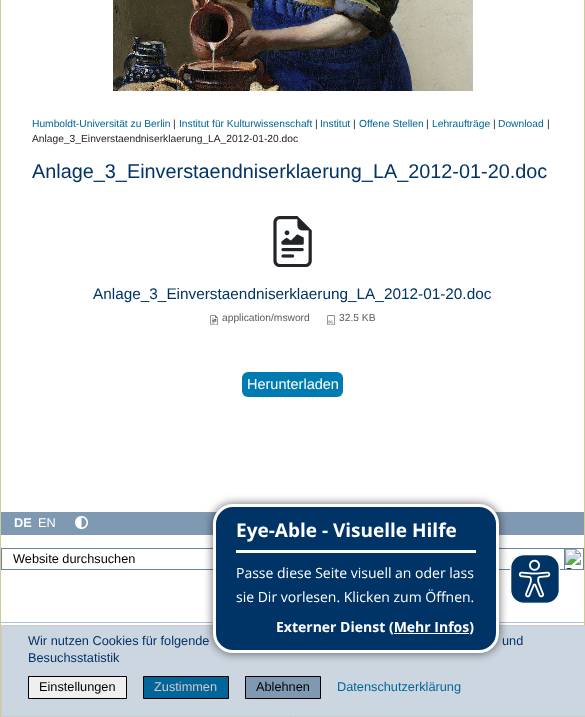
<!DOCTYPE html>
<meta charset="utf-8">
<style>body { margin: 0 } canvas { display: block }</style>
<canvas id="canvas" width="585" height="717"></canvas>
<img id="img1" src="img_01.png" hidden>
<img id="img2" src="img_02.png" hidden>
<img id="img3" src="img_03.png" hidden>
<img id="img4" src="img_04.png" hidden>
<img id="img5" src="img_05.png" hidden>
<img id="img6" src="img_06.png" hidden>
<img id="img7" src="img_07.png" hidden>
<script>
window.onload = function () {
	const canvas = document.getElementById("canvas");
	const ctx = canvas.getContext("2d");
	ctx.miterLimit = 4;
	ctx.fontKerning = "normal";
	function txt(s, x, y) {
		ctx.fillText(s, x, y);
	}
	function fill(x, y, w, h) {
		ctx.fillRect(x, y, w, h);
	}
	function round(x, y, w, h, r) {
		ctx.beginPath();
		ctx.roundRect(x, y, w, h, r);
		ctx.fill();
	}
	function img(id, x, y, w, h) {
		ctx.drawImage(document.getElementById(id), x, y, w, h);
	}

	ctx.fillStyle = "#FFFFFF";
	fill(0, 0, 585, 717);
	img("img1", 113, 0, 360, 91);
	ctx.fillStyle = "#CCCC99";
	fill(584, 0, 1, 625);
	fill(0, 0, 1, 717);
	img("img2", 273, 216, 39, 51);
	img("img3", 210, 315, 8, 10);
	img("img4", 327, 315, 8, 10);
	ctx.fillStyle = "#007BB1";
	round(242, 372, 101, 25, 6);
	ctx.fillStyle = "#8099B2";
	fill(1, 512, 583, 23);
	img("img5", 75, 516, 13, 13);
	ctx.strokeStyle = "#6685A3";
	ctx.strokeRect(1.5, 548.5, 582, 21);
	ctx.strokeRect(564.5, 548.5, 19, 21);
	img("img6", 565, 549, 16, 20);
	ctx.fillStyle = "#B2C1D1";
	fill(1, 622, 583, 1);
	ctx.fillStyle = "#CCD6E0";
	ctx.beginPath();
	ctx.rect(1.5, 625.5, 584, 91);
	ctx.fill();
	ctx.strokeStyle = "#CCCCCC";
	ctx.stroke();
	ctx.fillStyle = "rgba(0, 0, 0, 0.5)";
	ctx.filter = "blur(4px)";
	ctx.beginPath();
	ctx.roundRect(212, 503, 288, 151, 21);
	ctx.fill();
	ctx.filter = "none";
	ctx.fillStyle = "#003366";
	ctx.beginPath();
	ctx.roundRect(214.5, 505.5, 283, 146, 18.5);
	ctx.fill();
	ctx.strokeStyle = "#FFFFFF";
	ctx.lineWidth = 3;
	ctx.stroke();
	ctx.fillStyle = "#FFFFFF";
	fill(236, 550, 240, 3);
	fill(394, 633, 75, 1);
	img("img7", 510, 554, 50, 50);
	ctx.fillStyle = "#EFEFEF";
	ctx.beginPath();
	ctx.rect(28.5, 676.5, 98, 22);
	ctx.fill();
	ctx.strokeStyle = "#000000";
	ctx.lineWidth = 1;
	ctx.stroke();
	ctx.fillStyle = "#006699";
	ctx.beginPath();
	ctx.rect(143.5, 676.5, 85, 22);
	ctx.fill();
	ctx.stroke();
	ctx.fillStyle = "#8099B2";
	ctx.beginPath();
	ctx.rect(245.5, 676.5, 75, 22);
	ctx.fill();
	ctx.stroke();
	ctx.font = "10.25px Liberation Sans";
	ctx.fillStyle = "#006699";
	txt("Humboldt-Universität zu Berlin", 32, 127);
	ctx.fillStyle = "#212529";
	txt("|", 173, 127);
	ctx.fillStyle = "#006699";
	txt("Institut für Kulturwissenschaft", 179, 127);
	ctx.fillStyle = "#212529";
	txt("|", 315, 127);
	ctx.fillStyle = "#006699";
	txt("Institut", 320, 127);
	ctx.fillStyle = "#212529";
	txt("|", 353, 127);
	ctx.fillStyle = "#006699";
	txt("Offene Stellen", 359, 127);
	ctx.fillStyle = "#212529";
	txt("|", 426, 127);
	ctx.fillStyle = "#006699";
	txt("Lehraufträge", 432, 127);
	ctx.fillStyle = "#212529";
	txt("|", 493, 127);
	ctx.fillStyle = "#006699";
	txt("Download", 498, 127);
	ctx.fillStyle = "#212529";
	txt("|", 547, 127);
	txt("Anlage_3_Einverstaendniserklaerung_LA_2012-01-20.doc", 32, 142);
	ctx.font = "19.85px Liberation Sans";
	ctx.fillStyle = "#003366";
	txt("Anlage_3_Einverstaendniserklaerung_LA_2012-01-20.doc", 32, 178);
	ctx.font = "15.35px Liberation Sans";
	txt("Anlage_3_Einverstaendniserklaerung_LA_2012-01-20.doc", 93, 299);
	ctx.font = "10.25px Liberation Sans";
	ctx.fillStyle = "#595C5F";
	txt("application/msword", 222, 321);
	txt("32.5 KB", 339, 321);
	ctx.font = "14.5px Liberation Sans";
	ctx.fillStyle = "#FFFFFF";
	txt("Herunterladen", 247, 389);
	ctx.font = "bold 12.75px Liberation Sans";
	txt("DE", 14, 527);
	ctx.font = "12.75px Liberation Sans";
	txt("EN", 38, 527);
	ctx.fillStyle = "#000000";
	txt("Website durchsuchen", 13, 563);
	ctx.font = "bold 19px Open Sans";
	ctx.fillStyle = "#FFFFFF";
	txt("Eye-Able - Visuelle Hilfe", 236, 537);
	ctx.font = "14px Open Sans";
	txt("Passe diese Seite visuell an oder lass", 236, 578);
	txt("sie Dir vorlesen. Klicken zum Öffnen.", 236, 602);
	ctx.font = "bold 14px Open Sans";
	txt("Externer Dienst (Mehr Infos)", 276, 632);
	ctx.font = "12.75px Liberation Sans";
	ctx.fillStyle = "#003366";
	txt("Wir nutzen Cookies für folgende", 28, 645);
	txt("und", 502, 645);
	txt("Besuchsstatistik", 28, 662);
	ctx.fillStyle = "#000000";
	txt("Einstellungen", 39, 691);
	ctx.fillStyle = "#D5C7C7";
	txt("Zustimmen", 154, 691);
	ctx.fillStyle = "#000000";
	txt("Ablehnen", 256, 691);
	ctx.fillStyle = "#006699";
	txt("Datenschutzerklärung", 337, 691);
};
</script>
